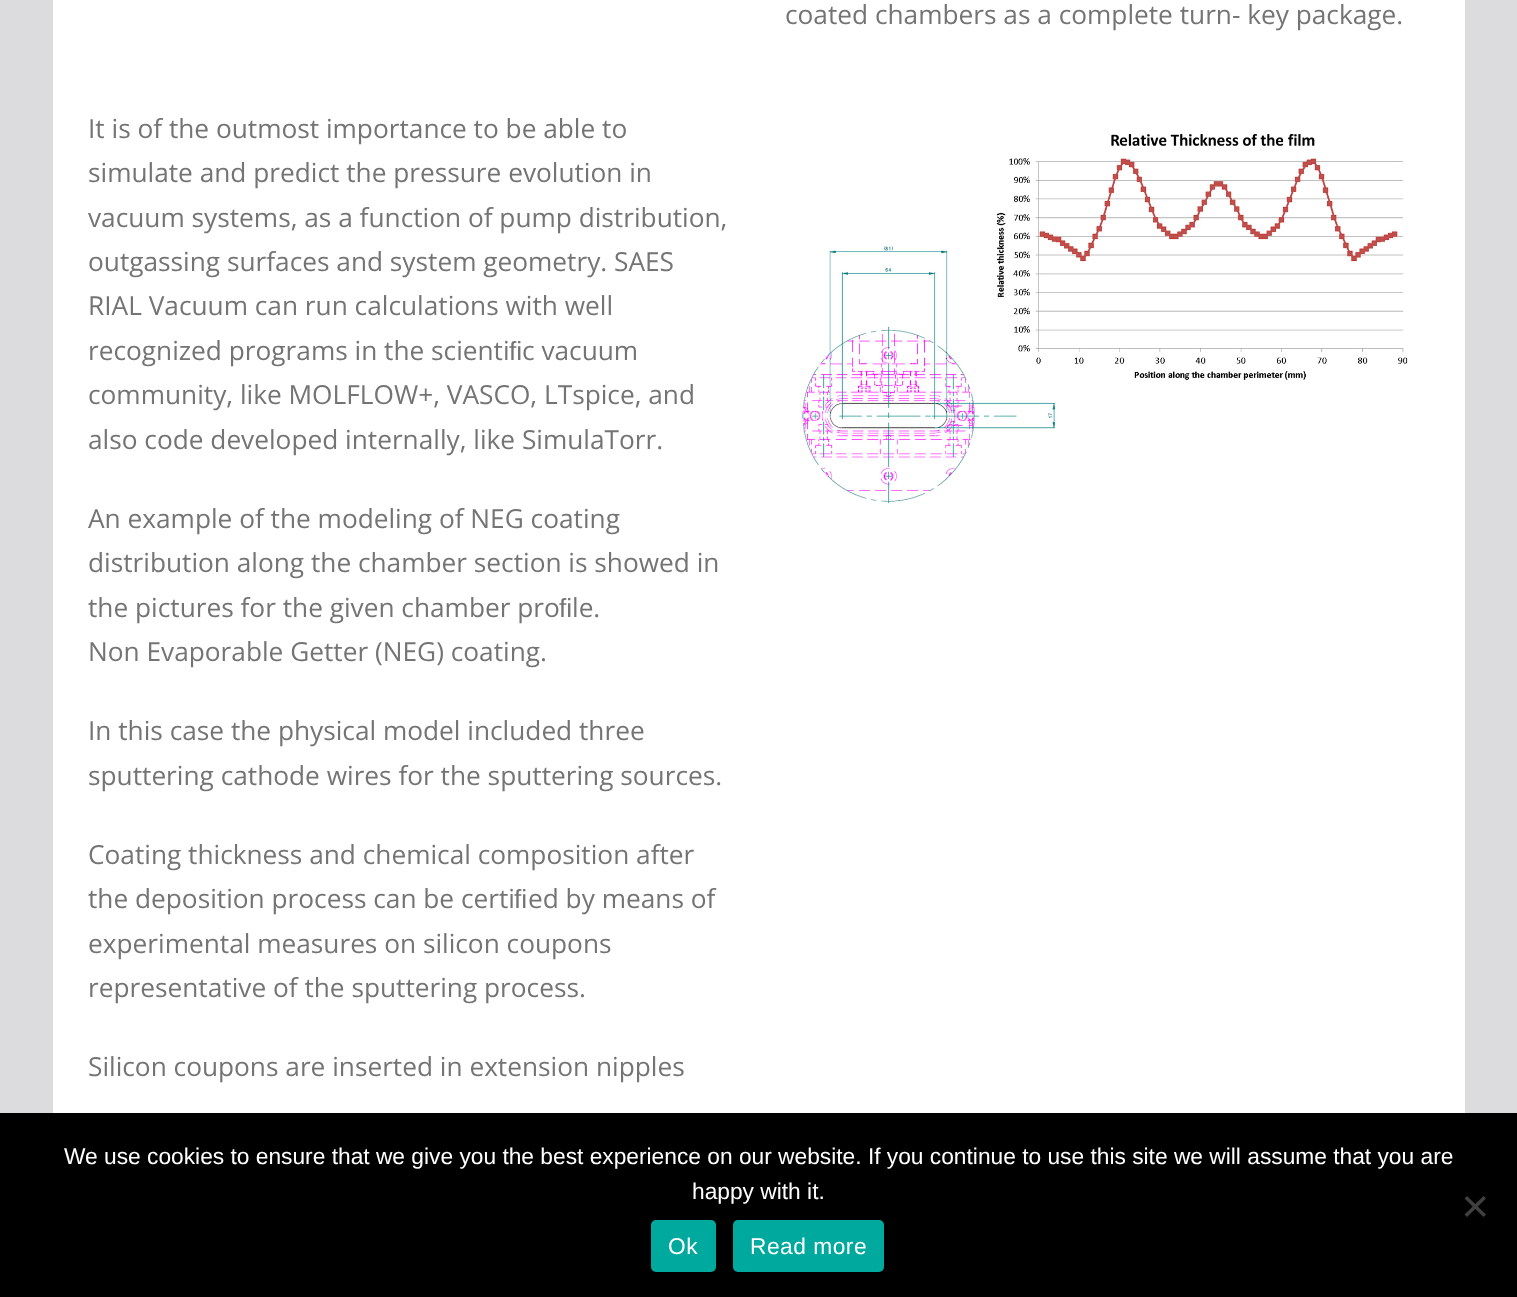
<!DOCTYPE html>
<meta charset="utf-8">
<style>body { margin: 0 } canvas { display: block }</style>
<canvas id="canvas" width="1517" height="1297"></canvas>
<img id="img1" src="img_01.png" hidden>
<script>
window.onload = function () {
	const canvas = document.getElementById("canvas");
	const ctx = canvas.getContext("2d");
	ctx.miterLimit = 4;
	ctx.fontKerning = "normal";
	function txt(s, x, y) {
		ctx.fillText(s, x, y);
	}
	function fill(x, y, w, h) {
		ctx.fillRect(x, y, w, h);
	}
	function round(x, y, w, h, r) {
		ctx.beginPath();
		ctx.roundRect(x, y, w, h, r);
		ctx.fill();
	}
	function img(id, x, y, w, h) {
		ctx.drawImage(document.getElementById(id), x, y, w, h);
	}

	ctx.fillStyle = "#DCDCDE";
	fill(0, 0, 1517, 1297);
	ctx.fillStyle = "#FFFFFF";
	fill(53, 0, 1412, 1113);
	img("img1", 802, 134, 606, 370);
	ctx.fillStyle = "#000000";
	fill(0, 1113, 1517, 184);
	ctx.fillStyle = "#404040";
	ctx.beginPath();
	ctx.moveTo(1483.5, 1196);
	ctx.lineTo(1486, 1198.5);
	ctx.lineTo(1467, 1217);
	ctx.lineTo(1464.5, 1214.5);
	ctx.closePath();
	ctx.fill();
	ctx.beginPath();
	ctx.moveTo(1464.5, 1198.5);
	ctx.lineTo(1467, 1196);
	ctx.lineTo(1486, 1214.5);
	ctx.lineTo(1483.5, 1217);
	ctx.closePath();
	ctx.fill();
	ctx.fillStyle = "#00A99D";
	round(651, 1220, 65, 52, 5);
	round(733, 1220, 151, 52, 5);
	ctx.font = "26.25px Open Sans";
	ctx.fillStyle = "#747474";
	txt("coated chambers as a complete turn- key package.", 785, 24);
	txt("It is of the outmost importance to be able to", 88, 138);
	txt("simulate and predict the pressure evolution in", 88, 182);
	txt("vacuum systems, as a function of pump distribution,", 88, 227);
	txt("outgassing surfaces and system geometry. SAES", 88, 271);
	txt("RIAL Vacuum can run calculations with well", 88, 315);
	txt("recognized programs in the scienti", 88, 360);
	ctx.font = "26.25px Liberation Sans";
	txt("ﬁ", 509, 360);
	ctx.font = "26.25px Open Sans";
	txt("c vacuum", 522, 360);
	txt("community, like MOLFLOW+, VASCO, LTspice, and", 88, 404);
	txt("also code developed internally, like SimulaTorr.", 88, 449);
	txt("An example of the modeling of NEG coating", 88, 528);
	txt("distribution along the chamber section is showed in", 88, 572);
	txt("the pictures for the given chamber pro", 88, 617);
	ctx.font = "26.25px Liberation Sans";
	txt("ﬁ", 559, 617);
	ctx.font = "26.25px Open Sans";
	txt("le.", 572, 617);
	txt("Non Evaporable Getter (NEG) coating.", 88, 661);
	txt("In this case the physical model included three", 88, 740);
	txt("sputtering cathode wires for the sputtering sources.", 88, 785);
	txt("Coating thickness and chemical composition after", 88, 864);
	txt("the deposition process can be certi", 88, 908);
	ctx.font = "26.25px Liberation Sans";
	txt("ﬁ", 514, 908);
	ctx.font = "26.25px Open Sans";
	txt("ed by means of", 528, 908);
	txt("experimental measures on silicon coupons", 88, 953);
	txt("representative of the sputtering process.", 88, 997);
	txt("Silicon coupons are inserted in extension nipples", 88, 1076);
	ctx.font = "22.75px Liberation Sans";
	ctx.fillStyle = "#FFFFFF";
	txt("We use cookies to ensure that we give you the best experience on our website. If you continue to use this site we will assume that you are", 64, 1164);
	txt("happy with it.", 692, 1199);
	ctx.letterSpacing = "0.5px";
	txt("Ok", 668, 1254);
	txt("Read more", 750, 1254);
};
</script>
